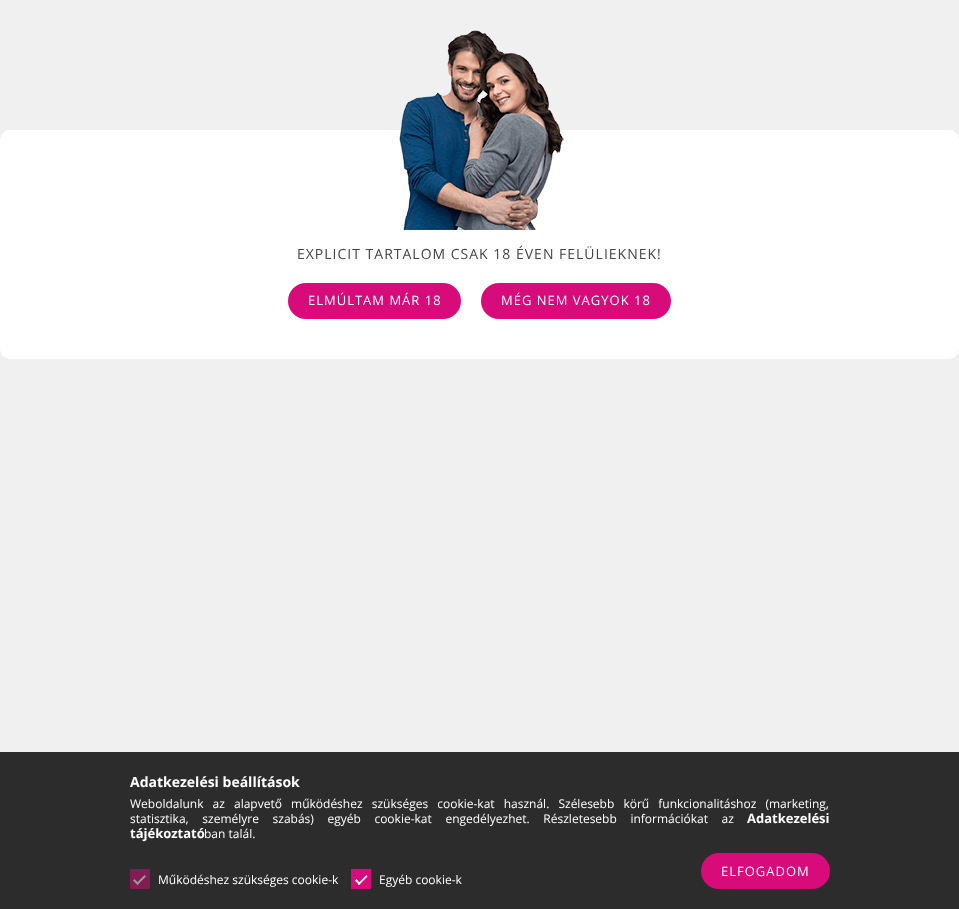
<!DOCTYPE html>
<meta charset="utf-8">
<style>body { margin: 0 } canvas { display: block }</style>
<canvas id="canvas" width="959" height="909"></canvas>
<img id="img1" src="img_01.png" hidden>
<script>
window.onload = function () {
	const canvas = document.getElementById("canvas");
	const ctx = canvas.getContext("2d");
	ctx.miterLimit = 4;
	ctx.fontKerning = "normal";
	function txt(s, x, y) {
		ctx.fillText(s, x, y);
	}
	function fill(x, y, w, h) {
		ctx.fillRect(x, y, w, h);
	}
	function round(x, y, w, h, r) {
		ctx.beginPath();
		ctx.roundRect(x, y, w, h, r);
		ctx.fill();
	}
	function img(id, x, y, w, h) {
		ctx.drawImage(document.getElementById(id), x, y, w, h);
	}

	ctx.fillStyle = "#F0F0F0";
	fill(0, 0, 959, 909);
	ctx.fillStyle = "#FFFFFF";
	round(0, 130, 959, 229, 10);
	img("img1", 399, 30, 165, 200);
	ctx.fillStyle = "#D70B7A";
	round(288, 283, 173, 36, 18);
	round(481, 283, 190, 36, 18);
	ctx.fillStyle = "#2C2C2C";
	fill(0, 752, 959, 157);
	ctx.fillStyle = "#D70B7A";
	round(701, 853, 129, 36, 18);
	ctx.fillStyle = "#821C53";
	fill(130, 869, 20, 20);
	ctx.fillStyle = "#969696";
	ctx.beginPath();
	ctx.moveTo(136, 883.5);
	ctx.lineTo(144.5, 875);
	ctx.lineTo(146, 876.5);
	ctx.lineTo(137.5, 885);
	ctx.closePath();
	ctx.fill();
	ctx.beginPath();
	ctx.moveTo(133, 880.5);
	ctx.lineTo(134.5, 879);
	ctx.lineTo(139, 883.5);
	ctx.lineTo(137.5, 885);
	ctx.closePath();
	ctx.fill();
	ctx.fillStyle = "#D70B7A";
	fill(351, 869, 20, 20);
	ctx.fillStyle = "#FFFFFF";
	ctx.beginPath();
	ctx.moveTo(358, 883.5);
	ctx.lineTo(366.5, 875);
	ctx.lineTo(367.5, 876.5);
	ctx.lineTo(359, 885);
	ctx.closePath();
	ctx.fill();
	ctx.beginPath();
	ctx.moveTo(355, 880.5);
	ctx.lineTo(356.5, 879);
	ctx.lineTo(360.5, 883.5);
	ctx.lineTo(359, 885);
	ctx.closePath();
	ctx.fill();
	ctx.letterSpacing = "1px";
	ctx.font = "14px Open Sans";
	ctx.fillStyle = "#444444";
	txt("EXPLICIT TARTALOM CSAK 18 ÉVEN FELÜLIEKNEK!", 297, 259);
	ctx.font = "13px Open Sans";
	ctx.fillStyle = "#FFFFFF";
	txt("ELMÚLTAM MÁR 18", 308, 305);
	txt("MÉG NEM VAGYOK 18", 501, 305);
	ctx.letterSpacing = "0px";
	ctx.font = "bold 14px Open Sans";
	txt("Adatkezelési beállítások", 130, 787);
	ctx.wordSpacing = "6px";
	ctx.font = "12px Open Sans";
	txt("Weboldalunk az alapvető működéshez szükséges cookie-kat használ. Szélesebb körű funkcionalitáshoz (marketing,", 130, 808);
	ctx.wordSpacing = "10.5px";
	txt("statisztika, személyre szabás) egyéb cookie-kat engedélyezhet. Részletesebb információkat az", 130, 823);
	ctx.wordSpacing = "0px";
	ctx.font = "bold 13px Open Sans";
	txt("Adatkezelési", 747, 823);
	txt("tájékoztató", 130, 838);
	ctx.font = "12px Open Sans";
	txt("ban talál.", 204, 838);
	ctx.letterSpacing = "1px";
	ctx.font = "13px Open Sans";
	txt("ELFOGADOM", 721, 876);
	ctx.letterSpacing = "0px";
	ctx.font = "12px Open Sans";
	txt("Működéshez szükséges cookie-k", 158, 884);
	txt("Egyéb cookie-k", 379, 884);
};
</script>
